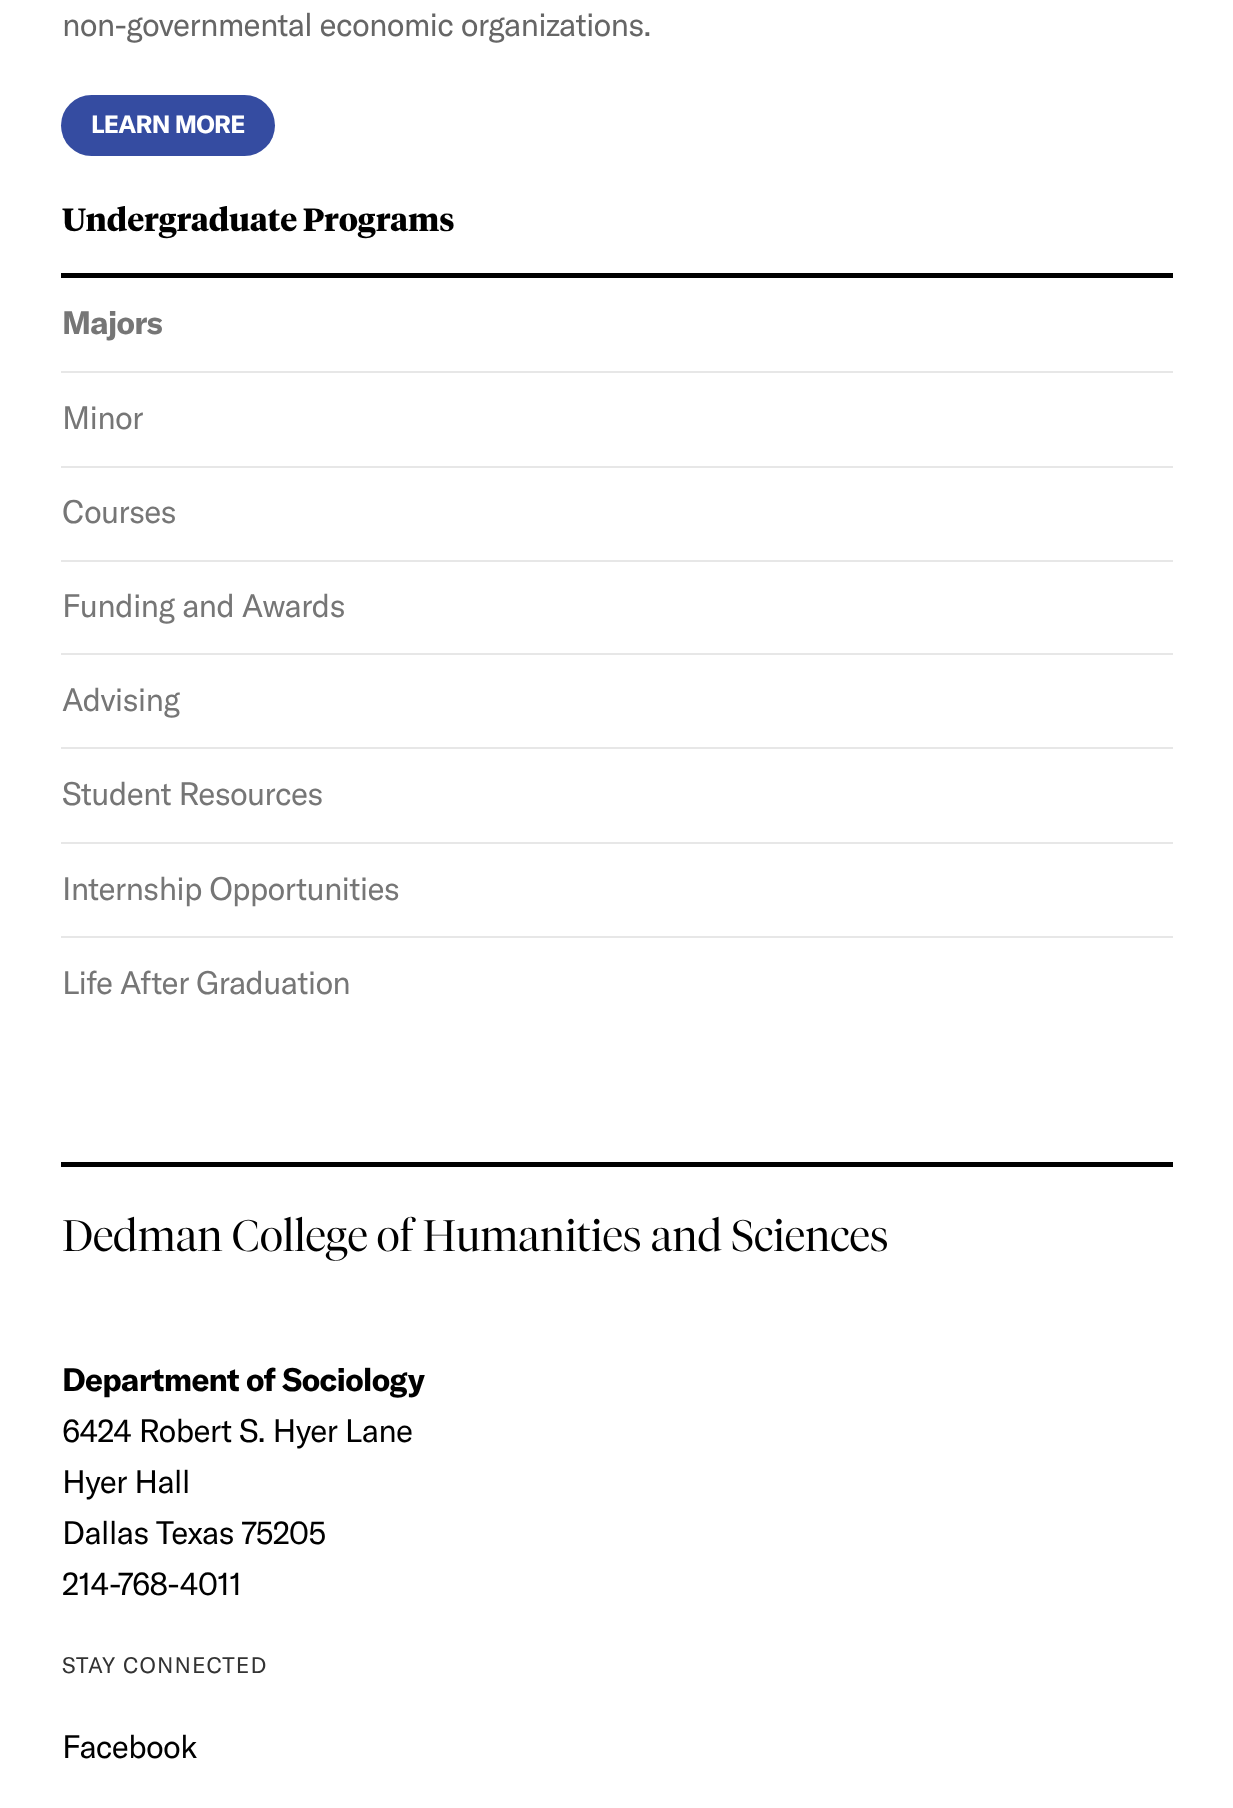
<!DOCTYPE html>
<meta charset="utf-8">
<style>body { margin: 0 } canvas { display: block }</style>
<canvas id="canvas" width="1233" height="1808"></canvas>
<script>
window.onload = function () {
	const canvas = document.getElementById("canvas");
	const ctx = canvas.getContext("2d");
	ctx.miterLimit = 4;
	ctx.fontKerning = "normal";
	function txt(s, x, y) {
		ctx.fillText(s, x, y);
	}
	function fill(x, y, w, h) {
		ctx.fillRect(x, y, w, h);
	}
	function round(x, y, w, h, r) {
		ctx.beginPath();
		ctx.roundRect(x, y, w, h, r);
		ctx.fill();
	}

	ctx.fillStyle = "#FFFFFF";
	fill(0, 0, 1233, 1808);
	ctx.fillStyle = "#354CA1";
	round(61, 95, 214, 61, 30.5);
	ctx.fillStyle = "#000000";
	fill(61, 273, 1112, 5);
	ctx.fillStyle = "#E7E7E7";
	fill(61, 371, 1112, 2);
	fill(61, 466, 1112, 2);
	fill(61, 560, 1112, 2);
	fill(61, 653, 1112, 2);
	fill(61, 747, 1112, 2);
	fill(61, 842, 1112, 2);
	fill(61, 936, 1112, 2);
	ctx.fillStyle = "#000000";
	fill(61, 1162, 1112, 5);
	ctx.letterSpacing = "-0.8px";
	ctx.font = "32px GT America";
	ctx.fillStyle = "#666666";
	txt("non-governmental economic organizations.", 62, 36);
	ctx.font = "bold 24.5px GT America";
	ctx.fillStyle = "#FFFFFF";
	txt("LEARN MORE", 91, 133);
	ctx.letterSpacing = "0px";
	ctx.font = "bold 32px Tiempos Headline";
	ctx.fillStyle = "#000000";
	txt("Undergraduate Programs", 62, 231);
	ctx.letterSpacing = "-0.8px";
	ctx.font = "bold 32px GT America";
	ctx.fillStyle = "#767676";
	txt("Majors", 62, 334);
	ctx.font = "32px GT America";
	txt("Minor", 62, 429);
	txt("Courses", 62, 523);
	txt("Funding and Awards", 62, 617);
	txt("Advising", 62, 711);
	txt("Student Resources", 62, 805);
	txt("Internship Opportunities", 62, 900);
	txt("Life After Graduation", 62, 994);
	ctx.letterSpacing = "0px";
	ctx.font = "300 43.75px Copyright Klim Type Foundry";
	ctx.fillStyle = "#000000";
	txt("Dedman College of Humanities and Sciences", 62, 1251);
	ctx.letterSpacing = "-0.8px";
	ctx.font = "bold 32px GT America";
	txt("Department of Sociology", 62, 1391);
	ctx.font = "32px GT America";
	txt("6424 Robert S. Hyer Lane", 62, 1442);
	txt("Hyer Hall", 62, 1493);
	txt("Dallas Texas 75205", 62, 1544);
	txt("214-768-4011", 62, 1595);
	ctx.letterSpacing = "1.1px";
	ctx.font = "22.1px GT America";
	ctx.fillStyle = "#333333";
	txt("STAY CONNECTED", 62, 1673);
	ctx.letterSpacing = "-0.8px";
	ctx.font = "32px GT America";
	ctx.fillStyle = "#000000";
	txt("Facebook", 62, 1758);
};
</script>
